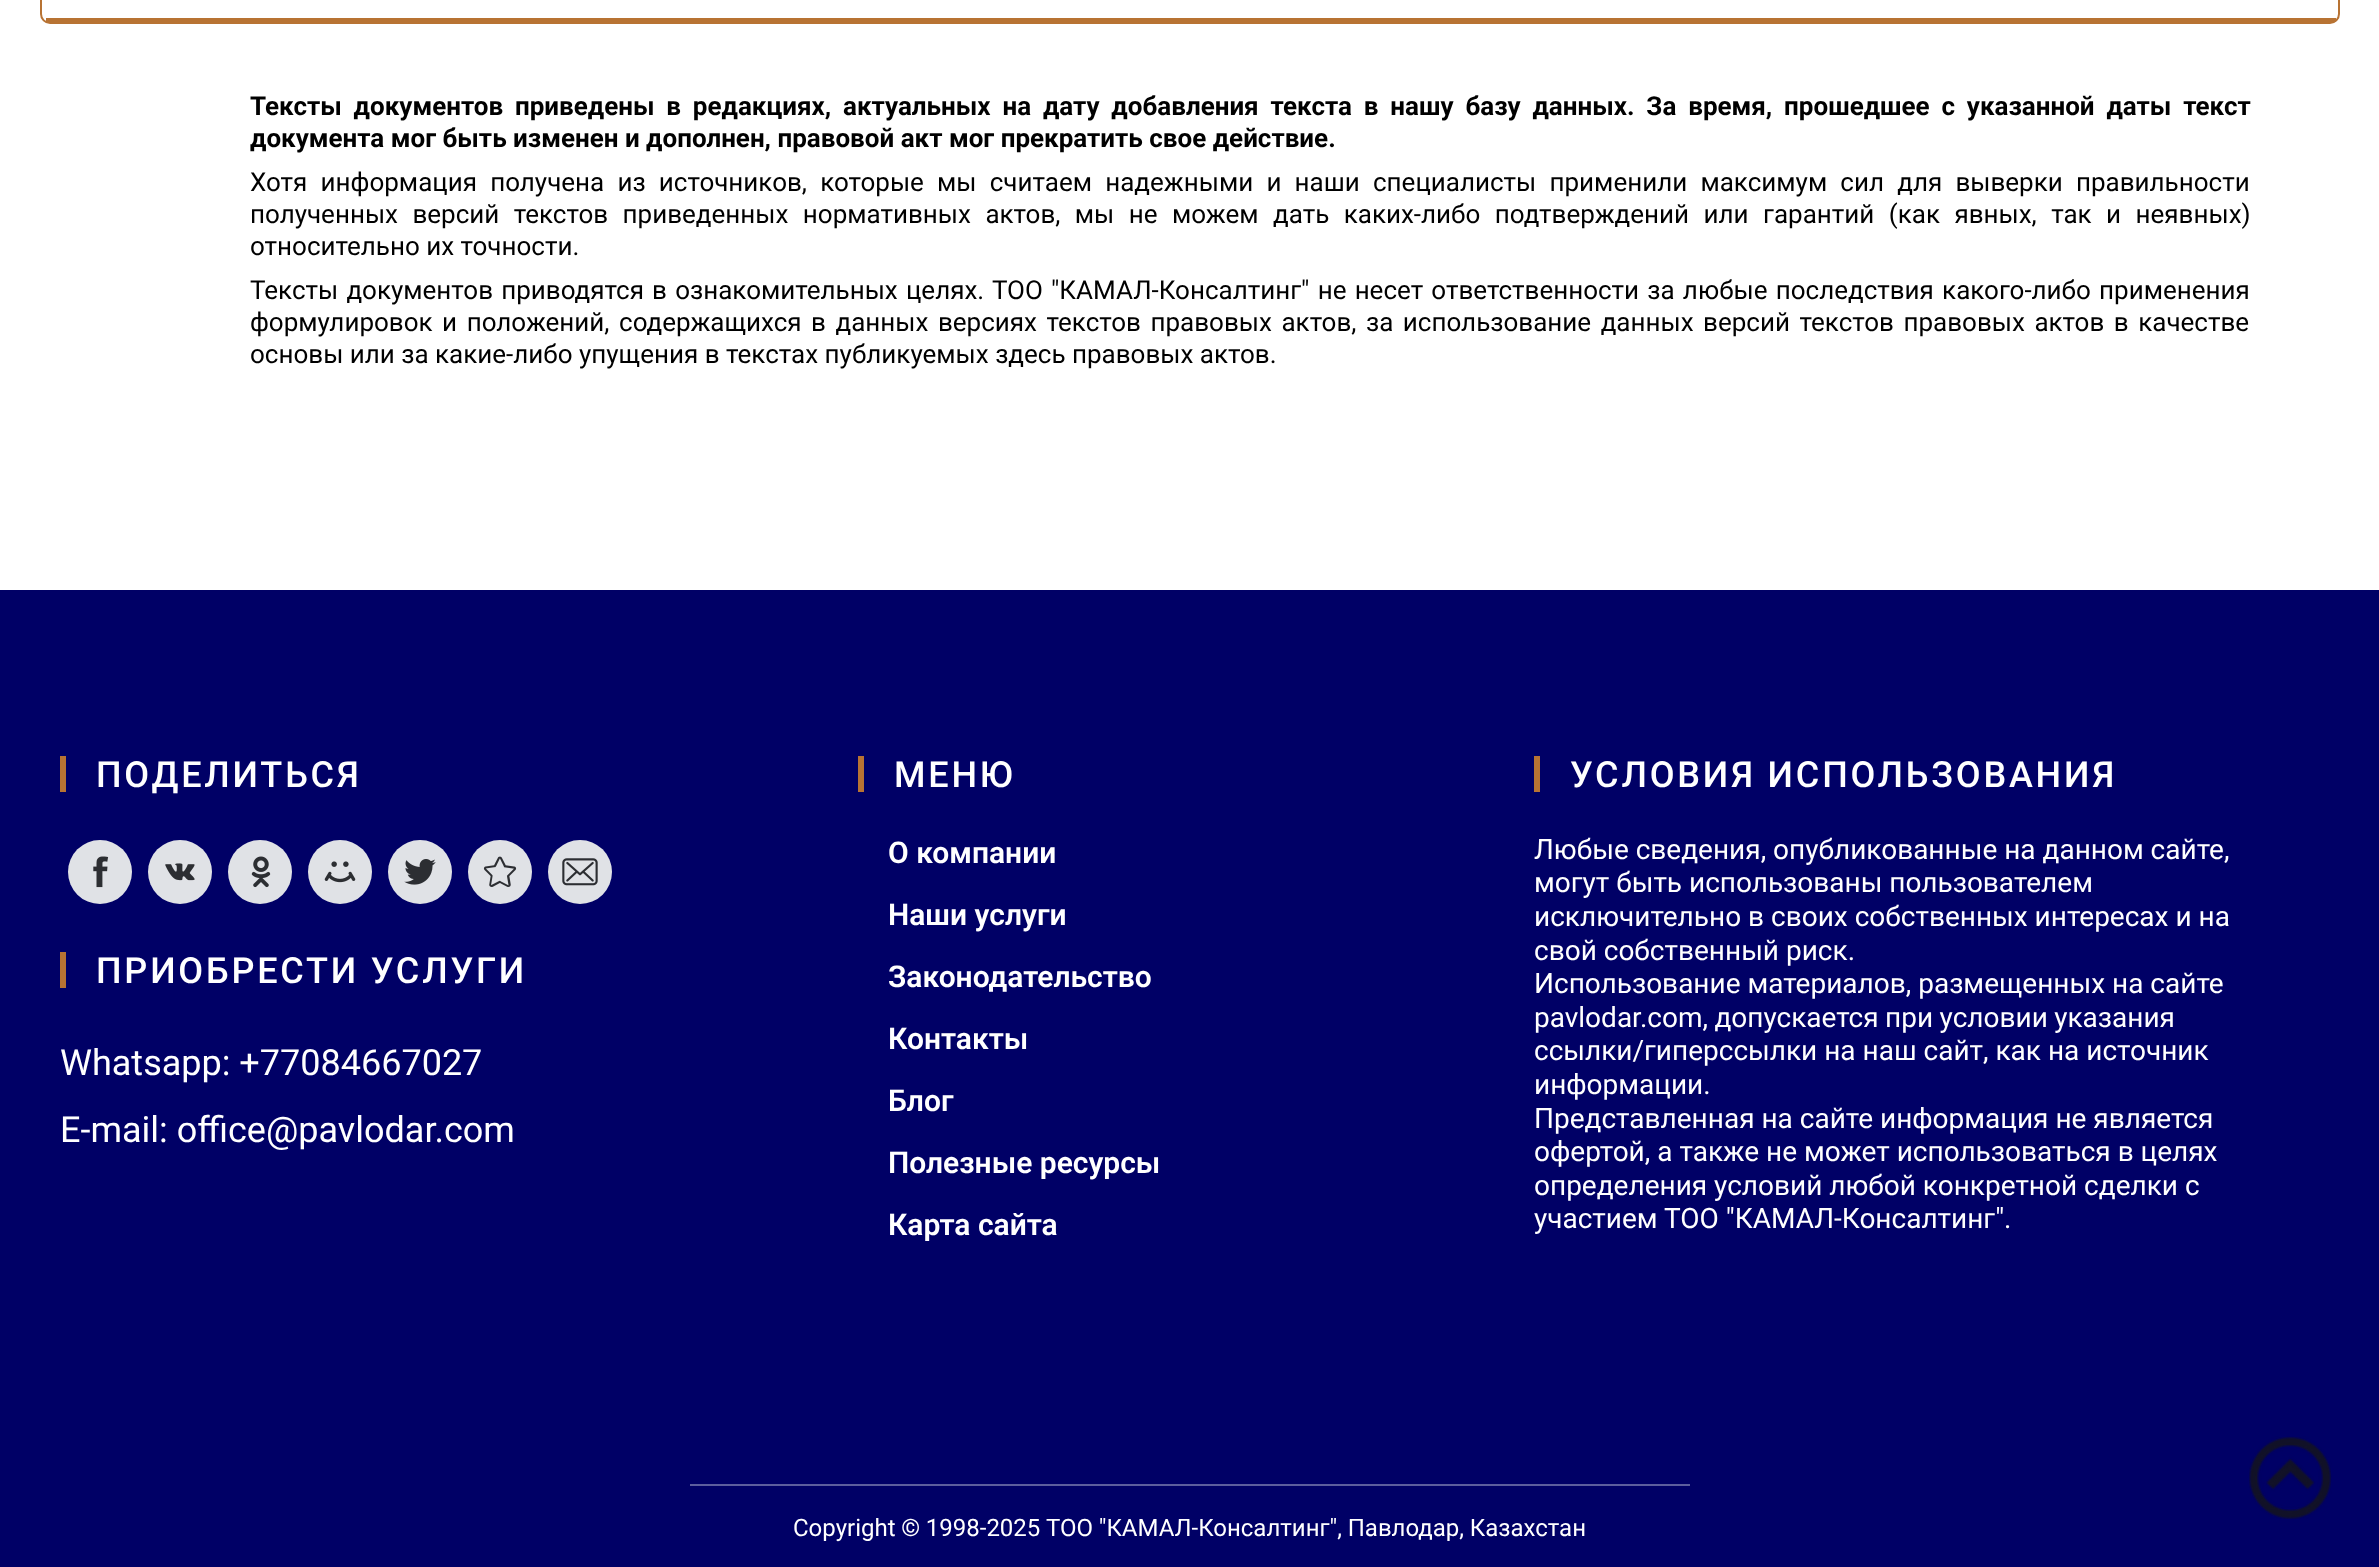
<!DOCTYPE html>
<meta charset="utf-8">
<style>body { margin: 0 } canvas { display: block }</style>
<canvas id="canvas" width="2379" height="1567"></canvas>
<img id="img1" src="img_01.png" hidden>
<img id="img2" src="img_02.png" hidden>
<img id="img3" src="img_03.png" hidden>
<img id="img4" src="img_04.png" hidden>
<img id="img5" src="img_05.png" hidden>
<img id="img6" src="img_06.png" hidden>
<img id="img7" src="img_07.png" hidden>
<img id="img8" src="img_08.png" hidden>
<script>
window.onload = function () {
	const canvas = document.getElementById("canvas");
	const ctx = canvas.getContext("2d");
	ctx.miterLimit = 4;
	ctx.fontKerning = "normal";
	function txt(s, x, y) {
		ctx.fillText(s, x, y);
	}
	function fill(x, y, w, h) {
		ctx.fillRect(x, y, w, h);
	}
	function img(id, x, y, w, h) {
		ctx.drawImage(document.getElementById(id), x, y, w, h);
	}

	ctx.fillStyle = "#FFFFFF";
	fill(0, 0, 2379, 1567);
	ctx.beginPath();
	ctx.roundRect(41, -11, 2298, 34, 9);
	ctx.strokeStyle = "#B87333";
	ctx.lineWidth = 2;
	ctx.stroke();
	ctx.fillStyle = "#B87333";
	fill(46, 18, 2290, 4);
	ctx.fillStyle = "#000066";
	fill(0, 590, 2379, 977);
	ctx.fillStyle = "#B87333";
	fill(60, 756, 6, 36);
	ctx.fillStyle = "#E0E2E6";
	ctx.beginPath();
	ctx.arc(100, 872, 32, 0, Math.PI * 2);
	ctx.fill();
	img("img1", 93, 856, 16, 32);
	ctx.beginPath();
	ctx.arc(180, 872, 32, 0, Math.PI * 2);
	ctx.fill();
	img("img2", 165, 863, 30, 18);
	ctx.beginPath();
	ctx.arc(260, 872, 32, 0, Math.PI * 2);
	ctx.fill();
	img("img3", 251, 856, 20, 32);
	ctx.beginPath();
	ctx.arc(340, 872, 32, 0, Math.PI * 2);
	ctx.fill();
	img("img4", 324, 861, 32, 22);
	ctx.beginPath();
	ctx.arc(420, 872, 32, 0, Math.PI * 2);
	ctx.fill();
	img("img5", 404, 859, 32, 26);
	ctx.beginPath();
	ctx.arc(500, 872, 32, 0, Math.PI * 2);
	ctx.fill();
	img("img6", 483, 856, 34, 31);
	ctx.beginPath();
	ctx.arc(580, 872, 32, 0, Math.PI * 2);
	ctx.fill();
	img("img7", 562, 858, 36, 28);
	ctx.fillStyle = "#B87333";
	fill(60, 952, 6, 36);
	fill(858, 756, 6, 36);
	fill(1534, 756, 6, 36);
	ctx.fillStyle = "#5C5E9D";
	fill(690, 1484, 1000, 2);
	img("img8", 2249, 1436, 83, 83);
	ctx.wordSpacing = "5.4px";
	ctx.font = "bold 26px Roboto";
	ctx.fillStyle = "#000000";
	txt("Тексты документов приведены в редакциях, актуальных на дату добавления текста в нашу базу данных. За время, прошедшее с указанной даты текст", 250, 115);
	ctx.wordSpacing = "0px";
	txt("документа мог быть изменен и дополнен, правовой акт мог прекратить свое действие.", 250, 147);
	ctx.wordSpacing = "6.75px";
	ctx.font = "26px Roboto";
	txt("Хотя информация получена из источников, которые мы считаем надежными и наши специалисты применили максимум сил для выверки правильности", 250, 191);
	ctx.wordSpacing = "8px";
	txt("полученных версий текстов приведенных нормативных актов, мы не можем дать каких-либо подтверждений или гарантий (как явных, так и неявных)", 250, 223);
	ctx.wordSpacing = "0px";
	txt("относительно их точности.", 250, 255);
	ctx.wordSpacing = "1.75px";
	txt("Тексты документов приводятся в ознакомительных целях. ТОО \"КАМАЛ-Консалтинг\" не несет ответственности за любые последствия какого-либо применения", 250, 299);
	ctx.wordSpacing = "3.1px";
	txt("формулировок и положений, содержащихся в данных версиях текстов правовых актов, за использование данных версий текстов правовых актов в качестве", 250, 331);
	ctx.wordSpacing = "0px";
	txt("основы или за какие-либо упущения в текстах публикуемых здесь правовых актов.", 250, 363);
	ctx.letterSpacing = "2.8px";
	ctx.font = "500 36px Roboto";
	ctx.fillStyle = "#FFFFFF";
	txt("ПОДЕЛИТЬСЯ", 96, 787);
	txt("ПРИОБРЕСТИ УСЛУГИ", 96, 983);
	ctx.letterSpacing = "0px";
	ctx.font = "36px Roboto";
	txt("Whatsapp: +77084667027", 60, 1075);
	txt("E-mail: office@pavlodar.com", 60, 1142);
	ctx.letterSpacing = "2.8px";
	ctx.font = "500 36px Roboto";
	txt("МЕНЮ", 894, 787);
	ctx.letterSpacing = "0px";
	ctx.font = "600 30px Roboto";
	txt("О компании", 888, 863);
	txt("Наши услуги", 888, 925);
	txt("Законодательство", 888, 987);
	txt("Контакты", 888, 1049);
	txt("Блог", 888, 1111);
	txt("Полезные ресурсы", 888, 1173);
	txt("Карта сайта", 888, 1235);
	ctx.letterSpacing = "2.8px";
	ctx.font = "500 36px Roboto";
	txt("УСЛОВИЯ ИСПОЛЬЗОВАНИЯ", 1570, 787);
	ctx.letterSpacing = "0px";
	ctx.font = "28px Roboto";
	txt("Любые сведения, опубликованные на данном сайте,", 1534, 859);
	txt("могут быть использованы пользователем", 1534, 892);
	txt("исключительно в своих собственных интересах и на", 1534, 926);
	txt("свой собственный риск.", 1534, 960);
	txt("Использование материалов, размещенных на сайте", 1534, 993);
	ctx.wordSpacing = "-0.5px";
	txt("pavlodar.com, допускается при условии указания", 1534, 1027);
	ctx.wordSpacing = "0px";
	txt("ссылки/гиперссылки на наш сайт, как на источник", 1534, 1060);
	txt("информации.", 1534, 1094);
	txt("Представленная на сайте информация не является", 1534, 1128);
	txt("офертой, а также не может использоваться в целях", 1534, 1161);
	txt("определения условий любой конкретной сделки с", 1534, 1195);
	txt("участием ТОО \"КАМАЛ-Консалтинг\".", 1534, 1228);
	ctx.wordSpacing = "-0.25px";
	ctx.font = "24px Roboto";
	txt("Copyright © 1998-2025 ТОО \"КАМАЛ-Консалтинг\", Павлодар, Казахстан", 793, 1536);
};
</script>
